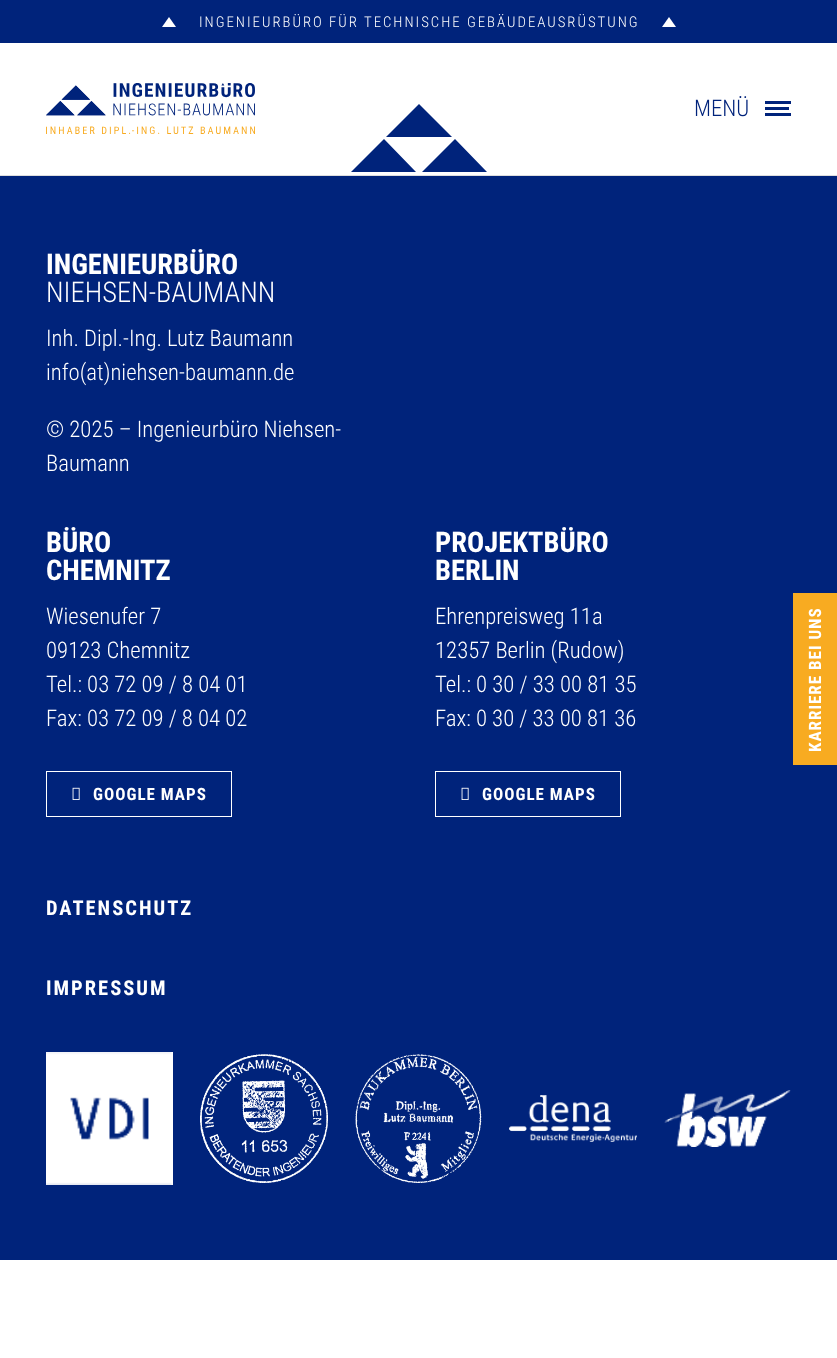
<!DOCTYPE html>
<meta charset="utf-8">
<style>body { margin: 0 } canvas { display: block }</style>
<canvas id="canvas" width="837" height="1358"></canvas>
<img id="img1" src="img_01.png" hidden>
<img id="img2" src="img_02.png" hidden>
<img id="img3" src="img_03.png" hidden>
<img id="img4" src="img_04.png" hidden>
<img id="img5" src="img_05.png" hidden>
<img id="img6" src="img_06.png" hidden>
<img id="img7" src="img_07.png" hidden>
<script>
window.onload = function () {
	const canvas = document.getElementById("canvas");
	const ctx = canvas.getContext("2d");
	ctx.miterLimit = 4;
	ctx.fontKerning = "normal";
	function txt(s, x, y) {
		ctx.fillText(s, x, y);
	}
	function fill(x, y, w, h) {
		ctx.fillRect(x, y, w, h);
	}
	function img(id, x, y, w, h) {
		ctx.drawImage(document.getElementById(id), x, y, w, h);
	}

	ctx.fillStyle = "#FFFFFF";
	fill(0, 0, 837, 1358);
	ctx.fillStyle = "#00237B";
	fill(0, 0, 837, 43);
	ctx.fillStyle = "#FFFFFF";
	ctx.beginPath();
	ctx.moveTo(176, 27);
	ctx.lineTo(162, 27);
	ctx.lineTo(169, 17);
	ctx.closePath();
	ctx.fill();
	ctx.beginPath();
	ctx.moveTo(676, 27);
	ctx.lineTo(662, 27);
	ctx.lineTo(669, 17);
	ctx.closePath();
	ctx.fill();
	img("img1", 46, 83, 209, 51);
	ctx.fillStyle = "#00237B";
	fill(765, 101, 26, 3);
	fill(765, 107, 24, 3);
	fill(765, 113, 26, 3);
	fill(0, 176, 837, 1084);
	ctx.fillStyle = "#DEDEDE";
	fill(0, 175, 837, 1);
	ctx.fillStyle = "#00237B";
	ctx.beginPath();
	ctx.moveTo(422, 172);
	ctx.lineTo(455, 139);
	ctx.lineTo(487, 172);
	ctx.closePath();
	ctx.moveTo(419, 104);
	ctx.lineTo(452, 137);
	ctx.lineTo(386, 137);
	ctx.closePath();
	ctx.moveTo(351, 172);
	ctx.lineTo(384, 139);
	ctx.lineTo(416, 172);
	ctx.closePath();
	ctx.fill("evenodd");
	ctx.strokeStyle = "#FFFFFF";
	ctx.strokeRect(46.5, 771.5, 185, 45);
	img("img2", 72, 787, 8, 13);
	ctx.strokeRect(435.5, 771.5, 185, 45);
	img("img2", 461, 787, 8, 13);
	img("img3", 46, 1052, 127, 133);
	img("img4", 200, 1054, 128, 129);
	img("img5", 355, 1054, 127, 129);
	img("img6", 509, 1095, 128, 47);
	img("img7", 664, 1090, 127, 57);
	ctx.fillStyle = "#F8AB21";
	fill(793, 593, 44, 172);
	ctx.letterSpacing = "2px";
	ctx.font = "300 14.8px Roboto Condensed";
	ctx.fillStyle = "#FFFFFF";
	txt("INGENIEURBÜRO FÜR TECHNISCHE GEBÄUDEAUSRÜSTUNG", 199, 27);
	ctx.letterSpacing = "0px";
	ctx.font = "300 22.75px Roboto Condensed";
	ctx.fillStyle = "#00237B";
	txt("MENÜ", 694, 116);
	ctx.font = "bold 28.5px Roboto Condensed";
	ctx.fillStyle = "#FFFFFF";
	txt("INGENIEURBÜRO", 46, 274);
	ctx.font = "300 28.5px Roboto Condensed";
	txt("NIEHSEN-BAUMANN", 46, 302);
	ctx.font = "300 22.75px Roboto Condensed";
	txt("Inh. Dipl.-Ing. Lutz Baumann", 46, 346);
	txt("info(at)niehsen-baumann.de", 46, 380);
	txt("© 2025 – Ingenieurbüro Niehsen-", 46, 437);
	txt("Baumann", 46, 471);
	ctx.font = "bold 28.5px Roboto Condensed";
	txt("BÜRO", 46, 552);
	txt("CHEMNITZ", 46, 580);
	ctx.font = "300 22.75px Roboto Condensed";
	txt("Wiesenufer 7", 46, 624);
	txt("09123 Chemnitz", 46, 658);
	txt("Tel.: 03 72 09 / 8 04 01", 46, 692);
	txt("Fax: 03 72 09 / 8 04 02", 46, 726);
	ctx.letterSpacing = "1px";
	ctx.font = "bold 17px Roboto Condensed";
	txt("GOOGLE MAPS", 93, 800);
	ctx.letterSpacing = "0px";
	ctx.font = "bold 28.5px Roboto Condensed";
	txt("PROJEKTBÜRO", 435, 552);
	txt("BERLIN", 435, 580);
	ctx.font = "300 22.75px Roboto Condensed";
	txt("Ehrenpreisweg 11a", 435, 624);
	txt("12357 Berlin (Rudow)", 435, 658);
	txt("Tel.: 0 30 / 33 00 81 35", 435, 692);
	txt("Fax: 0 30 / 33 00 81 36", 435, 726);
	ctx.letterSpacing = "1px";
	ctx.font = "bold 17px Roboto Condensed";
	txt("GOOGLE MAPS", 482, 800);
	ctx.letterSpacing = "2px";
	ctx.font = "bold 20.5px Roboto Condensed";
	txt("DATENSCHUTZ", 46, 915);
	txt("IMPRESSUM", 46, 995);
	ctx.letterSpacing = "1px";
	ctx.font = "bold 17px Roboto Condensed";
	ctx.save();
	ctx.translate(821, 752);
	ctx.rotate(-90 * Math.PI / 180);
	ctx.fillText("KARRIERE BEI UNS", 0, 0);
	ctx.restore();
};
</script>
